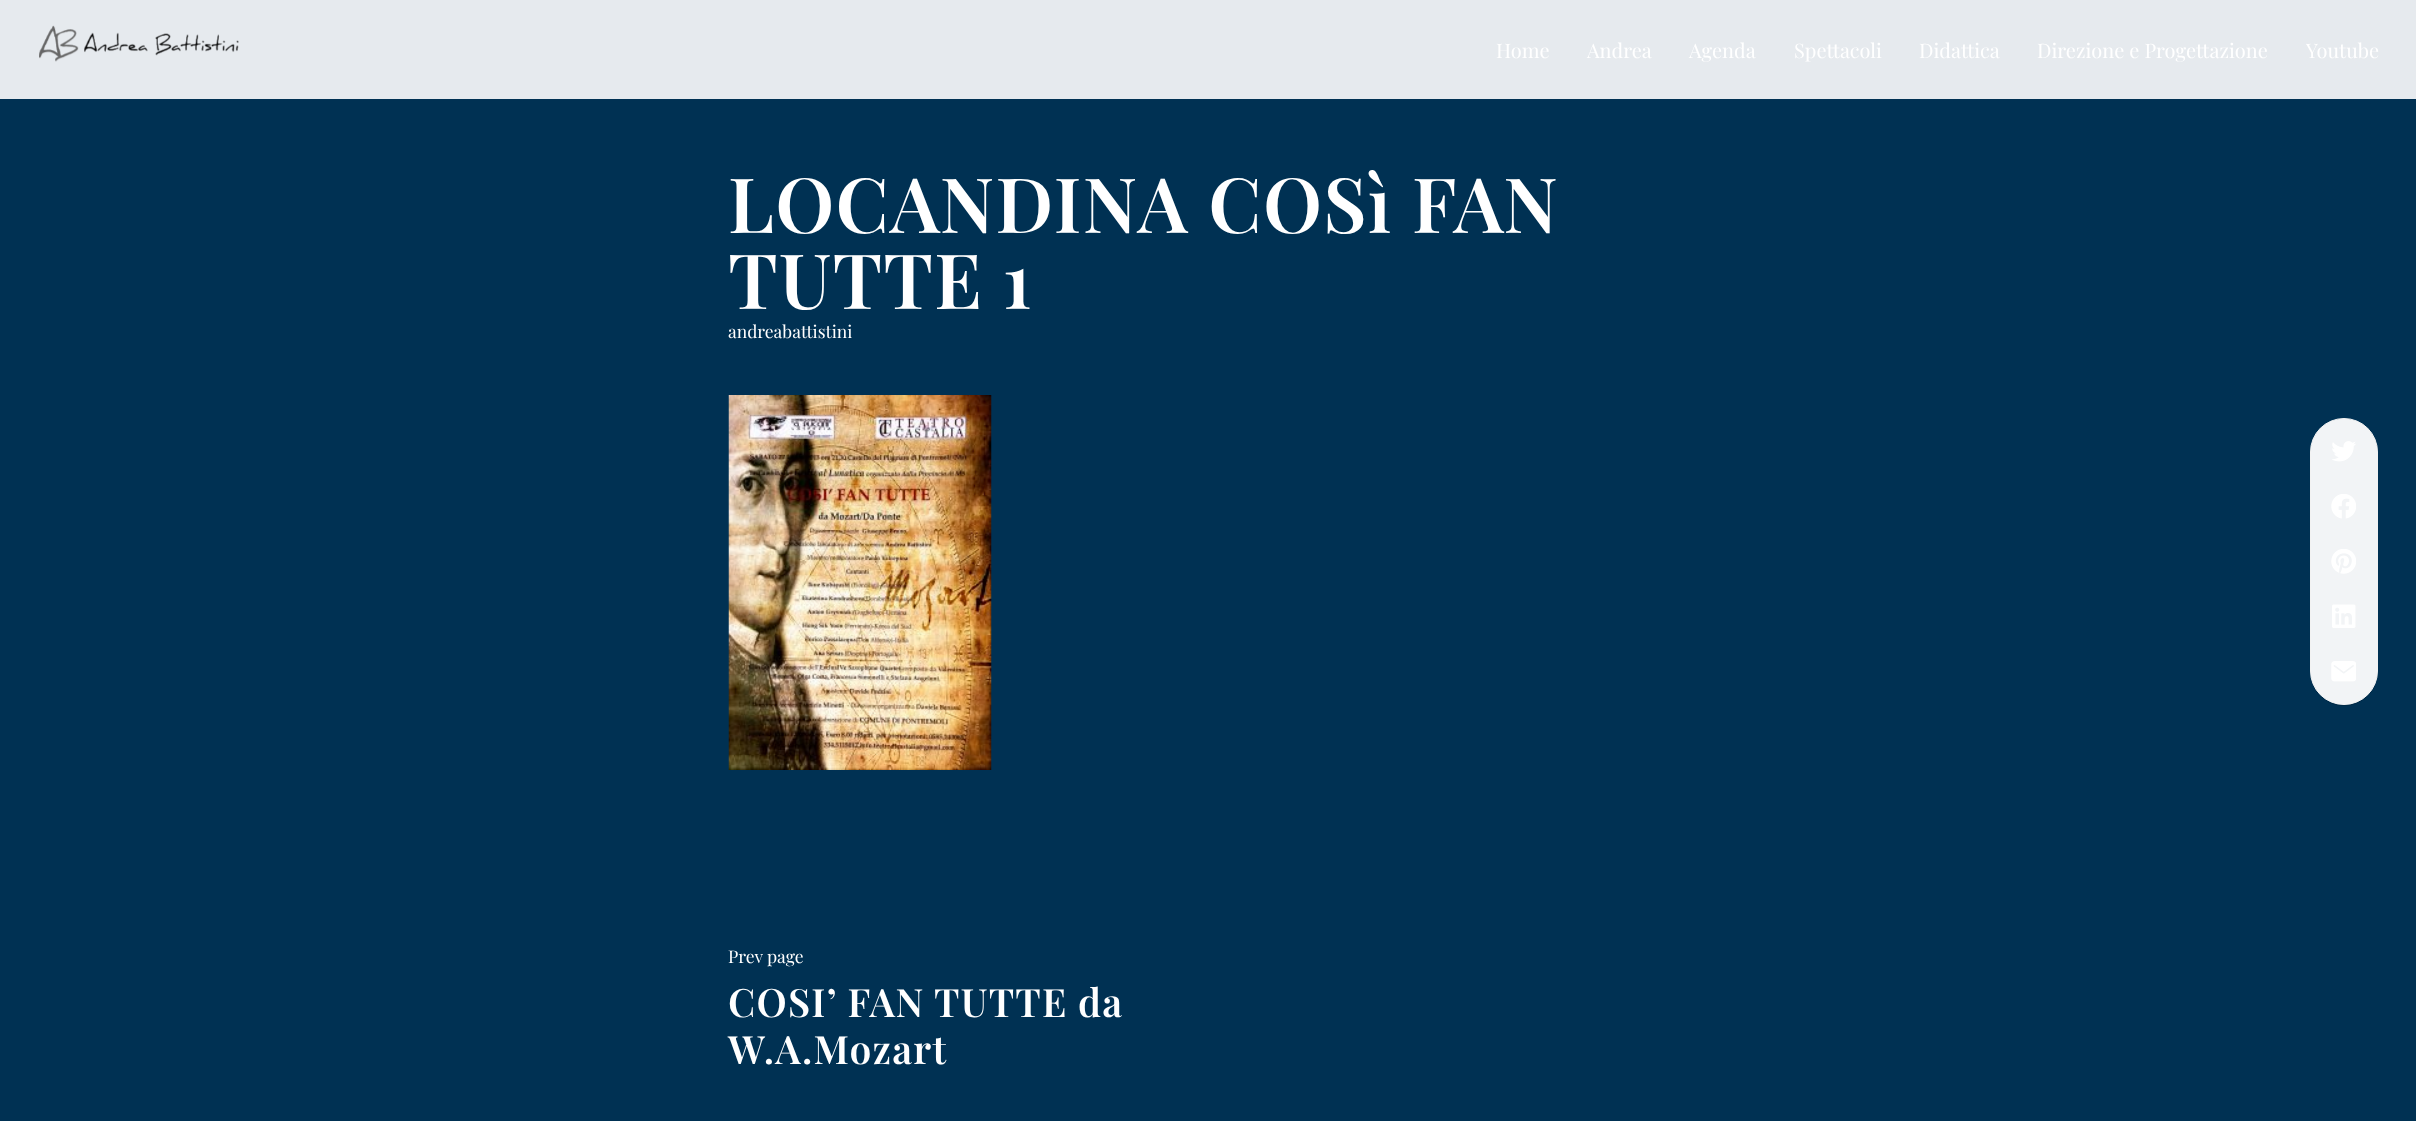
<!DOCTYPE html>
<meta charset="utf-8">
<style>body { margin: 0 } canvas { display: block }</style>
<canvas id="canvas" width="2416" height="1121"></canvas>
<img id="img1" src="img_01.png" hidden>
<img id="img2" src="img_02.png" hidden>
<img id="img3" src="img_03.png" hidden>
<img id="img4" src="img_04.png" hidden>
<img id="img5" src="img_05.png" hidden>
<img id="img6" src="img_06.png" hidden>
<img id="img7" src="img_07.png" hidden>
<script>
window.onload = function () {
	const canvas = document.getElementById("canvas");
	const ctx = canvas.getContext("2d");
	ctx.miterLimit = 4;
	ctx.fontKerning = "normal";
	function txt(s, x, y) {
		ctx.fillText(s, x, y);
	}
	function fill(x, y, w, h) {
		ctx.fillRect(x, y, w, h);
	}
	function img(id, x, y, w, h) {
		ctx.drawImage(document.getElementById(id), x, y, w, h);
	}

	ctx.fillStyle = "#003153";
	fill(0, 0, 2416, 1121);
	ctx.fillStyle = "#E6EAEE";
	fill(0, 0, 2416, 99);
	img("img1", 39, 25, 200, 37);
	img("img2", 728, 395, 264, 375);
	ctx.save();
	ctx.beginPath();
	ctx.moveTo(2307, 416);
	ctx.lineTo(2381, 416);
	ctx.lineTo(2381, 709);
	ctx.lineTo(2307, 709);
	ctx.closePath();
	ctx.moveTo(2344, 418);
	ctx.bezierCurveTo(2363, 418, 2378, 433, 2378, 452);
	ctx.lineTo(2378, 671);
	ctx.bezierCurveTo(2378, 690, 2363, 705, 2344, 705);
	ctx.bezierCurveTo(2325, 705, 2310, 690, 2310, 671);
	ctx.lineTo(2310, 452);
	ctx.bezierCurveTo(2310, 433, 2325, 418, 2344, 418);
	ctx.closePath();
	ctx.clip("evenodd");
	ctx.fillStyle = "rgba(0, 0, 0, 0.15)";
	ctx.filter = "blur(0.5px)";
	ctx.beginPath();
	ctx.roundRect(2310, 419, 68, 287, 34);
	ctx.fill();
	ctx.filter = "none";
	ctx.restore();
	ctx.fillStyle = "rgba(255, 255, 255, 0.95)";
	ctx.beginPath();
	ctx.roundRect(2310.5, 418.5, 67, 286, 33.5);
	ctx.fill();
	ctx.strokeStyle = "#F2F2F2";
	ctx.stroke();
	img("img3", 2332, 441, 24, 21);
	img("img4", 2331, 494, 25, 25);
	img("img5", 2331, 549, 25, 25);
	img("img6", 2332, 604, 24, 24);
	img("img7", 2331, 661, 25, 21);
	ctx.font = "20px Playfair Display";
	ctx.fillStyle = "#FFFFFF";
	txt("Home", 1496, 58);
	txt("Andrea", 1587, 58);
	txt("Agenda", 1689, 58);
	txt("Spettacoli", 1794, 58);
	txt("Didattica", 1919, 58);
	txt("Direzione e Progettazione", 2037, 58);
	txt("Youtube", 2306, 58);
	ctx.letterSpacing = "1.2px";
	ctx.font = "600 76.25px Playfair Display";
	txt("LOCANDINA COSì FAN", 728, 233);
	txt("TUTTE 1", 728, 309);
	ctx.letterSpacing = "0px";
	ctx.font = "17.5px Playfair Display";
	txt("andreabattistini", 728, 338);
	txt("Prev page", 728, 963);
	ctx.letterSpacing = "1.2px";
	ctx.font = "600 39px Playfair Display";
	txt("COSI’ FAN TUTTE da", 728, 1017);
	txt("W.A.Mozart", 728, 1064);
};
</script>
